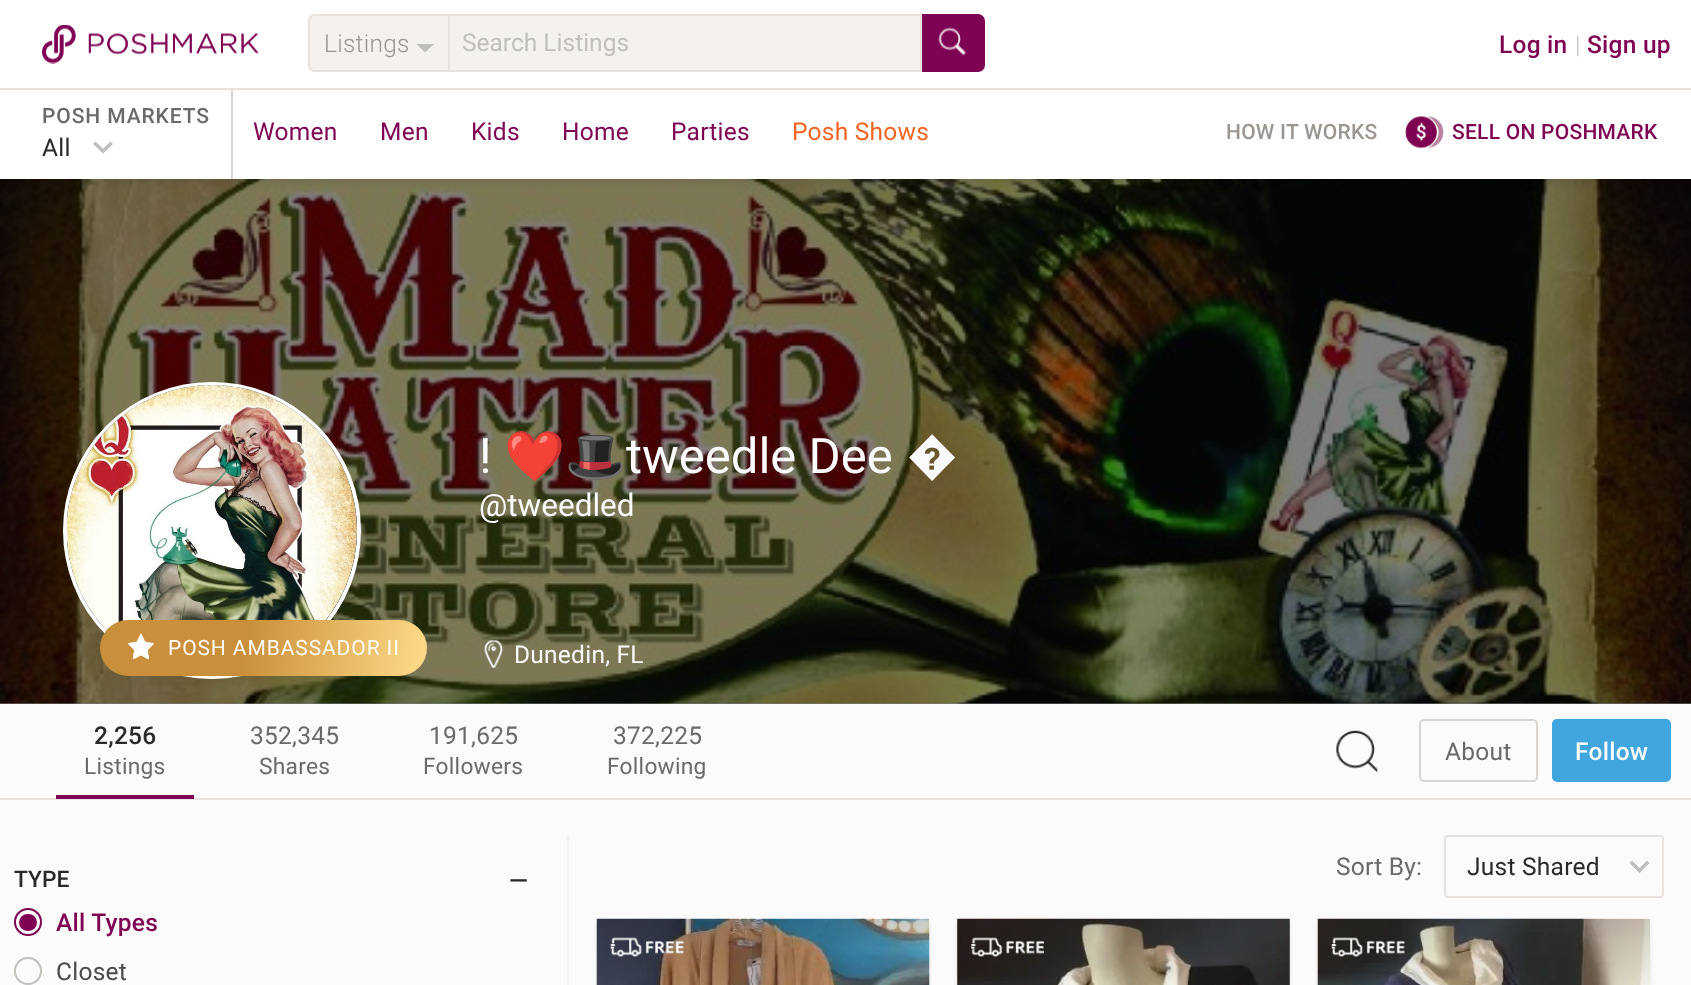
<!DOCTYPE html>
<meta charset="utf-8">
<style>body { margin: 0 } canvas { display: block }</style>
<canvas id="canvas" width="1691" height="985"></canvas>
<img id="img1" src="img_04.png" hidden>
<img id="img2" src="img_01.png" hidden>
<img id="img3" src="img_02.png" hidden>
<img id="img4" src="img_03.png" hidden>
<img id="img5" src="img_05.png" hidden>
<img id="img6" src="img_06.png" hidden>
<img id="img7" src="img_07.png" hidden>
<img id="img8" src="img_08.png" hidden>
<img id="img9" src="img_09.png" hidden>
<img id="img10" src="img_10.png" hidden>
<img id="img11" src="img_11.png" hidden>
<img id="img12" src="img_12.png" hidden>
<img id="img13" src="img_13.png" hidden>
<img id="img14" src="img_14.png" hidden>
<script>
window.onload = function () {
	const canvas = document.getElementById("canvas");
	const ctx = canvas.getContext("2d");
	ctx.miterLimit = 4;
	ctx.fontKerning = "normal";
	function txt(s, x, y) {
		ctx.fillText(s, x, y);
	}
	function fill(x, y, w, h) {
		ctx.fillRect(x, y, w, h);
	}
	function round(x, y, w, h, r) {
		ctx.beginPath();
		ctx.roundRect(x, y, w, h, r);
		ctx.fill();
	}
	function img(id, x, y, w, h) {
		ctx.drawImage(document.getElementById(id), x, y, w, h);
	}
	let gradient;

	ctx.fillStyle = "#FCFBFB";
	fill(0, 0, 1691, 985);
	ctx.fillStyle = "#7E7E7E";
	fill(0, 703, 1691, 1);
	img("img1", 0, 179, 1691, 525);
	ctx.fillStyle = "rgba(0, 0, 0, 0.1)";
	ctx.filter = "blur(5px)";
	ctx.beginPath();
	ctx.rect(-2, 88, 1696, 94);
	ctx.fill();
	ctx.filter = "none";
	ctx.fillStyle = "#FFFFFF";
	fill(0, 0, 1691, 88);
	fill(0, 90, 1691, 89);
	ctx.fillStyle = "#D9D5D2";
	fill(231, 88, 2, 91);
	ctx.fillStyle = "#E6E2DF";
	fill(0, 88, 1691, 2);
	img("img2", 42, 25, 217, 39);
	ctx.fillStyle = "#F5F2EE";
	ctx.beginPath();
	ctx.roundRect(308, 14, 140, 58, [7, 0, 0, 7]);
	ctx.fill();
	ctx.fillStyle = "#E6E2DF";
	ctx.beginPath();
	ctx.moveTo(315, 14);
	ctx.lineTo(448, 14);
	ctx.lineTo(448, 72);
	ctx.lineTo(315, 72);
	ctx.bezierCurveTo(311, 72, 308, 69, 308, 65);
	ctx.lineTo(308, 21);
	ctx.bezierCurveTo(308, 17, 311, 14, 315, 14);
	ctx.closePath();
	ctx.moveTo(315, 16);
	ctx.lineTo(448, 16);
	ctx.lineTo(448, 70);
	ctx.lineTo(315, 70);
	ctx.bezierCurveTo(312, 70, 310, 68, 310, 65);
	ctx.lineTo(310, 21);
	ctx.bezierCurveTo(310, 18, 312, 16, 315, 16);
	ctx.closePath();
	ctx.fill("evenodd");
	ctx.fillStyle = "#C1BFBC";
	ctx.beginPath();
	ctx.moveTo(416.5, 44);
	ctx.lineTo(434, 44);
	ctx.lineTo(425, 52.5);
	ctx.closePath();
	ctx.fill();
	ctx.fillStyle = "#7F0353";
	ctx.beginPath();
	ctx.roundRect(921, 14, 64, 58, [0, 7, 7, 0]);
	ctx.fill();
	ctx.fillStyle = "#F5F2EE";
	ctx.beginPath();
	ctx.rect(449, 15, 472, 56);
	ctx.fill();
	ctx.strokeStyle = "#E6E2DF";
	ctx.lineWidth = 2;
	ctx.stroke();
	img("img3", 938, 27, 28, 29);
	ctx.fillStyle = "#C1BFBC";
	ctx.beginPath();
	ctx.moveTo(110.5, 141.5);
	ctx.lineTo(113, 144);
	ctx.lineTo(103, 153.5);
	ctx.lineTo(100.5, 151);
	ctx.closePath();
	ctx.fill();
	ctx.beginPath();
	ctx.moveTo(95.5, 141.5);
	ctx.lineTo(105.5, 151);
	ctx.lineTo(103, 153.5);
	ctx.lineTo(93, 144);
	ctx.closePath();
	ctx.fill();
	img("img4", 1405, 116, 39, 33);
	ctx.beginPath();
	ctx.roundRect(65, 384, 294, 293, 146.5);
	ctx.strokeStyle = "#FFFFFF";
	ctx.lineWidth = 4;
	ctx.stroke();
	img("img5", 66, 385, 291, 246);
	gradient = ctx.createLinearGradient(100, 619, 427, 676);
	gradient.addColorStop(0.44, "#C98F3A");
	gradient.addColorStop(1, "#FFDC8A");
	ctx.fillStyle = gradient;
	round(100, 620, 327, 56, 28);
	img("img6", 127, 633, 27, 27);
	img("img7", 484, 640, 19, 28);
	ctx.fillStyle = "#E6E2DF";
	fill(0, 798, 1691, 2);
	ctx.fillStyle = "#7F0353";
	fill(56, 795, 138, 4);
	img("img8", 1336, 730, 42, 42);
	ctx.beginPath();
	ctx.roundRect(1420, 720, 117, 61, 4);
	ctx.strokeStyle = "#D9D5D2";
	ctx.lineWidth = 2;
	ctx.stroke();
	ctx.fillStyle = "#41A6DE";
	ctx.beginPath();
	ctx.roundRect(1553, 720, 117, 61, 4);
	ctx.fill();
	ctx.strokeStyle = "#41A6DE";
	ctx.stroke();
	ctx.fillStyle = "#F5F2EE";
	fill(567, 835, 2, 150);
	ctx.beginPath();
	ctx.arc(28, 922, 13, 0, Math.PI * 2);
	ctx.strokeStyle = "#7F0353";
	ctx.stroke();
	ctx.fillStyle = "#7F0353";
	round(19, 914, 18, 17, 8.5);
	ctx.beginPath();
	ctx.arc(28, 971, 13, 0, Math.PI * 2);
	ctx.strokeStyle = "#C1BFBC";
	ctx.stroke();
	ctx.beginPath();
	ctx.roundRect(1445, 836, 218, 61, 3);
	ctx.strokeStyle = "#E6E2DF";
	ctx.stroke();
	ctx.fillStyle = "#C1BFBC";
	ctx.beginPath();
	ctx.moveTo(1647, 860.5);
	ctx.lineTo(1649.5, 863);
	ctx.lineTo(1639.5, 873);
	ctx.lineTo(1637, 870.5);
	ctx.closePath();
	ctx.fill();
	ctx.beginPath();
	ctx.moveTo(1632, 860.5);
	ctx.lineTo(1642, 870.5);
	ctx.lineTo(1639.5, 873);
	ctx.lineTo(1629.5, 863);
	ctx.closePath();
	ctx.fill();
	ctx.fillStyle = "rgba(0, 0, 0, 0.1)";
	ctx.filter = "blur(2px)";
	ctx.beginPath();
	ctx.roundRect(597, 921, 332, 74, 4);
	ctx.fill();
	ctx.filter = "none";
	img("img9", 596, 918, 334, 67);
	img("img10", 610, 937, 74, 20);
	ctx.filter = "blur(2px)";
	ctx.beginPath();
	ctx.roundRect(957, 921, 333, 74, 4);
	ctx.fill();
	ctx.filter = "none";
	img("img11", 957, 918, 333, 67);
	gradient = ctx.createLinearGradient(1124, 919, 1124, 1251);
	gradient.addColorStop(0, "rgba(0, 0, 0, 0.2)");
	gradient.addColorStop(0.27, "rgba(0, 0, 0, 0)");
	ctx.fillStyle = gradient;
	fill(957, 919, 333, 66);
	img("img12", 971, 937, 73, 20);
	ctx.fillStyle = "rgba(0, 0, 0, 0.1)";
	ctx.filter = "blur(2px)";
	ctx.beginPath();
	ctx.roundRect(1318, 921, 332, 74, 4);
	ctx.fill();
	ctx.filter = "none";
	img("img13", 1317, 918, 333, 67);
	img("img14", 1331, 937, 74, 20);
	ctx.letterSpacing = "0.25px";
	ctx.font = "300 24.5px Roboto";
	ctx.fillStyle = "#9B9691";
	txt("Listings", 324, 52);
	ctx.letterSpacing = "0px";
	ctx.font = "24.5px Roboto";
	ctx.fillStyle = "#C1BFBC";
	txt("Search Listings", 462, 51);
	ctx.letterSpacing = "0.25px";
	ctx.font = "500 24.5px Roboto";
	ctx.fillStyle = "#7F0353";
	txt("Log in", 1499, 53);
	ctx.font = "300 24.5px Roboto";
	ctx.fillStyle = "#C1BFBC";
	txt("|", 1575, 53);
	ctx.font = "500 24.5px Roboto";
	ctx.fillStyle = "#7F0353";
	txt("Sign up", 1587, 53);
	ctx.letterSpacing = "0.9px";
	ctx.font = "500 21px Roboto";
	ctx.fillStyle = "#6A6A6A";
	txt("POSH MARKETS", 42, 123);
	ctx.letterSpacing = "0.25px";
	ctx.font = "24.5px Roboto";
	ctx.fillStyle = "#2A2A2A";
	txt("All", 42, 156);
	ctx.fillStyle = "#7F0353";
	txt("Women", 253, 140);
	txt("Men", 380, 140);
	txt("Kids", 471, 140);
	txt("Home", 562, 140);
	txt("Parties", 671, 140);
	ctx.fillStyle = "#F36522";
	txt("Posh Shows", 792, 140);
	ctx.font = "500 21px Roboto";
	ctx.fillStyle = "#9B9691";
	txt("HOW IT WORKS", 1226, 139);
	ctx.fillStyle = "#7F0353";
	txt("SELL ON POSHMARK", 1452, 139);
	ctx.letterSpacing = "0.9px";
	ctx.font = "21px Roboto";
	ctx.fillStyle = "#FCFBFB";
	txt("POSH AMBASSADOR II", 168, 655);
	ctx.letterSpacing = "0px";
	ctx.font = "49px Roboto";
	txt("!", 479, 473);
	ctx.font = "49px Noto Color Emoji";
	txt("❤️🎩", 504, 473);
	ctx.font = "49px Roboto";
	txt("tweedle Dee", 626, 473);
	txt("�", 907, 473);
	ctx.font = "31.5px Roboto";
	txt("@tweedled", 479, 516);
	ctx.letterSpacing = "0.25px";
	ctx.font = "24.5px Roboto";
	txt("Dunedin, FL", 514, 663);
	ctx.font = "500 24.5px Roboto";
	ctx.fillStyle = "#2A2A2A";
	txt("2,256", 94, 744);
	ctx.font = "22.75px Roboto";
	ctx.fillStyle = "#6A6A6A";
	txt("Listings", 84, 774);
	ctx.font = "24.5px Roboto";
	txt("352,345", 250, 744);
	ctx.font = "22.75px Roboto";
	txt("Shares", 259, 774);
	ctx.font = "24.5px Roboto";
	txt("191,625", 429, 744);
	ctx.font = "22.75px Roboto";
	txt("Followers", 423, 774);
	ctx.font = "24.5px Roboto";
	txt("372,225", 613, 744);
	ctx.font = "22.75px Roboto";
	txt("Following", 607, 774);
	ctx.font = "24.5px Roboto";
	txt("About", 1445, 760);
	ctx.font = "500 24.5px Roboto";
	ctx.fillStyle = "#FCFBFB";
	txt("Follow", 1575, 760);
	ctx.letterSpacing = "0px";
	ctx.font = "500 22.75px Roboto";
	ctx.fillStyle = "#2A2A2A";
	txt("TYPE", 14, 887);
	ctx.letterSpacing = "0.25px";
	ctx.font = "500 24.5px Roboto";
	txt("—", 509, 889);
	ctx.fillStyle = "#7F0353";
	txt("All Types", 56, 931);
	ctx.font = "24.5px Roboto";
	ctx.fillStyle = "#4A4A4A";
	txt("Closet", 56, 980);
	ctx.fillStyle = "#6A6A6A";
	txt("Sort By:", 1336, 875);
	ctx.fillStyle = "#2A2A2A";
	txt("Just Shared", 1467, 875);
};
</script>
